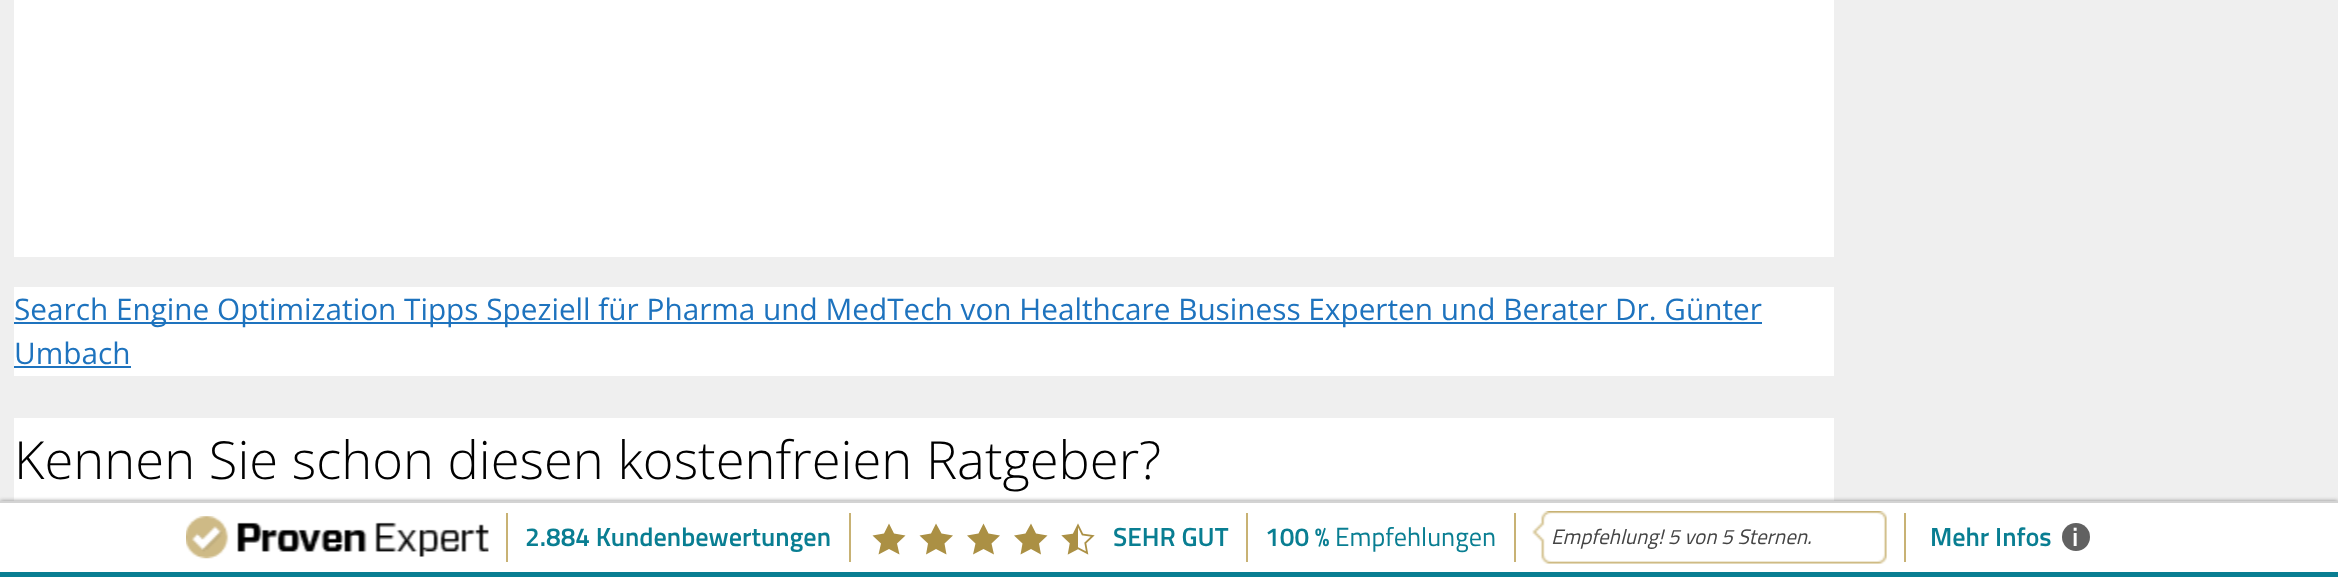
<!DOCTYPE html>
<meta charset="utf-8">
<style>body { margin: 0 } canvas { display: block }</style>
<canvas id="canvas" width="2338" height="577"></canvas>
<img id="img1" src="img_01.png" hidden>
<img id="img2" src="img_02.png" hidden>
<img id="img3" src="img_03.png" hidden>
<script>
window.onload = function () {
	const canvas = document.getElementById("canvas");
	const ctx = canvas.getContext("2d");
	ctx.miterLimit = 4;
	ctx.fontKerning = "normal";
	function txt(s, x, y) {
		ctx.fillText(s, x, y);
	}
	function fill(x, y, w, h) {
		ctx.fillRect(x, y, w, h);
	}
	function img(id, x, y, w, h) {
		ctx.drawImage(document.getElementById(id), x, y, w, h);
	}

	ctx.fillStyle = "#EFEFEF";
	fill(0, 0, 2338, 577);
	ctx.fillStyle = "#FFFFFF";
	fill(14, 0, 1820, 257);
	fill(14, 287, 1820, 89);
	ctx.fillStyle = "#1E73BE";
	fill(14, 322, 1748, 2);
	fill(14, 366, 117, 2);
	ctx.fillStyle = "#FFFFFF";
	fill(14, 418, 1820, 83);
	ctx.fillStyle = "#888888";
	ctx.filter = "blur(2px)";
	ctx.beginPath();
	ctx.rect(0, 501, 2338, 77);
	ctx.fill();
	ctx.filter = "none";
	ctx.fillStyle = "#FFFFFF";
	fill(0, 503, 2338, 69);
	ctx.fillStyle = "#D3D3D3";
	fill(0, 501, 2338, 2);
	img("img1", 186, 516, 303, 43);
	ctx.fillStyle = "#C8B274";
	fill(506, 513, 2, 49);
	fill(849, 513, 2, 49);
	ctx.fillStyle = "#AB9044";
	ctx.beginPath();
	ctx.moveTo(889, 523.5);
	ctx.lineTo(894, 533.5);
	ctx.lineTo(905.5, 535.5);
	ctx.lineTo(897, 543.5);
	ctx.lineTo(899.5, 554.5);
	ctx.lineTo(889, 549);
	ctx.lineTo(878.5, 554.5);
	ctx.lineTo(881, 543.5);
	ctx.lineTo(872.5, 535.5);
	ctx.lineTo(884, 533.5);
	ctx.closePath();
	ctx.fill();
	ctx.beginPath();
	ctx.moveTo(936, 523.5);
	ctx.lineTo(941.5, 533.5);
	ctx.lineTo(953, 535.5);
	ctx.lineTo(944.5, 543.5);
	ctx.lineTo(946.5, 554.5);
	ctx.lineTo(936, 549);
	ctx.lineTo(926, 554.5);
	ctx.lineTo(928, 543.5);
	ctx.lineTo(919.5, 535.5);
	ctx.lineTo(931, 533.5);
	ctx.closePath();
	ctx.fill();
	ctx.beginPath();
	ctx.moveTo(983.5, 523.5);
	ctx.lineTo(988.5, 533.5);
	ctx.lineTo(1000, 535.5);
	ctx.lineTo(991.5, 543.5);
	ctx.lineTo(994, 554.5);
	ctx.lineTo(983.5, 549);
	ctx.lineTo(973, 554.5);
	ctx.lineTo(975.5, 543.5);
	ctx.lineTo(967, 535.5);
	ctx.lineTo(978.5, 533.5);
	ctx.closePath();
	ctx.fill();
	ctx.beginPath();
	ctx.moveTo(1031, 523.5);
	ctx.lineTo(1036, 533.5);
	ctx.lineTo(1047.5, 535.5);
	ctx.lineTo(1039, 543.5);
	ctx.lineTo(1041, 554.5);
	ctx.lineTo(1031, 549);
	ctx.lineTo(1020.5, 554.5);
	ctx.lineTo(1022.5, 543.5);
	ctx.lineTo(1014, 535.5);
	ctx.lineTo(1025.5, 533.5);
	ctx.closePath();
	ctx.fill();
	img("img2", 1061, 523, 34, 32);
	ctx.fillStyle = "#C8B274";
	fill(1246, 513, 2, 49);
	fill(1514, 513, 2, 49);
	img("img3", 1532, 511, 355, 53);
	fill(1904, 513, 2, 49);
	ctx.fillStyle = "#616161";
	ctx.beginPath();
	ctx.arc(2076, 537, 14, 0, Math.PI * 2);
	ctx.fill();
	ctx.fillStyle = "#097E92";
	fill(0, 572, 2338, 5);
	ctx.font = "29.75px Open Sans";
	ctx.fillStyle = "#1E73BE";
	txt("Search Engine Optimization Tipps Speziell für Pharma und MedTech von Healthcare Business Experten und Berater Dr. Günter", 14, 320);
	txt("Umbach", 14, 364);
	ctx.font = "300 52.5px Open Sans";
	ctx.fillStyle = "#000000";
	txt("Kennen Sie schon diesen kostenfreien Ratgeber?", 14, 479);
	ctx.font = "600 26.25px Titillium Web";
	ctx.fillStyle = "#097E92";
	txt("2.884 Kundenbewertungen", 525, 546);
	txt("SEHR GUT", 1113, 546);
	txt("100 %", 1265, 546);
	ctx.font = "26.25px Titillium Web";
	txt("Empfehlungen", 1335, 546);
	ctx.font = "italic 21px Titillium Web";
	ctx.fillStyle = "#444444";
	txt("Empfehlung! 5 von 5 Sternen.", 1551, 544);
	ctx.font = "600 26.25px Titillium Web";
	ctx.fillStyle = "#097E92";
	txt("Mehr Infos", 1930, 546);
	ctx.fillStyle = "#FFFFFF";
	txt("i", 2072, 546);
};
</script>
